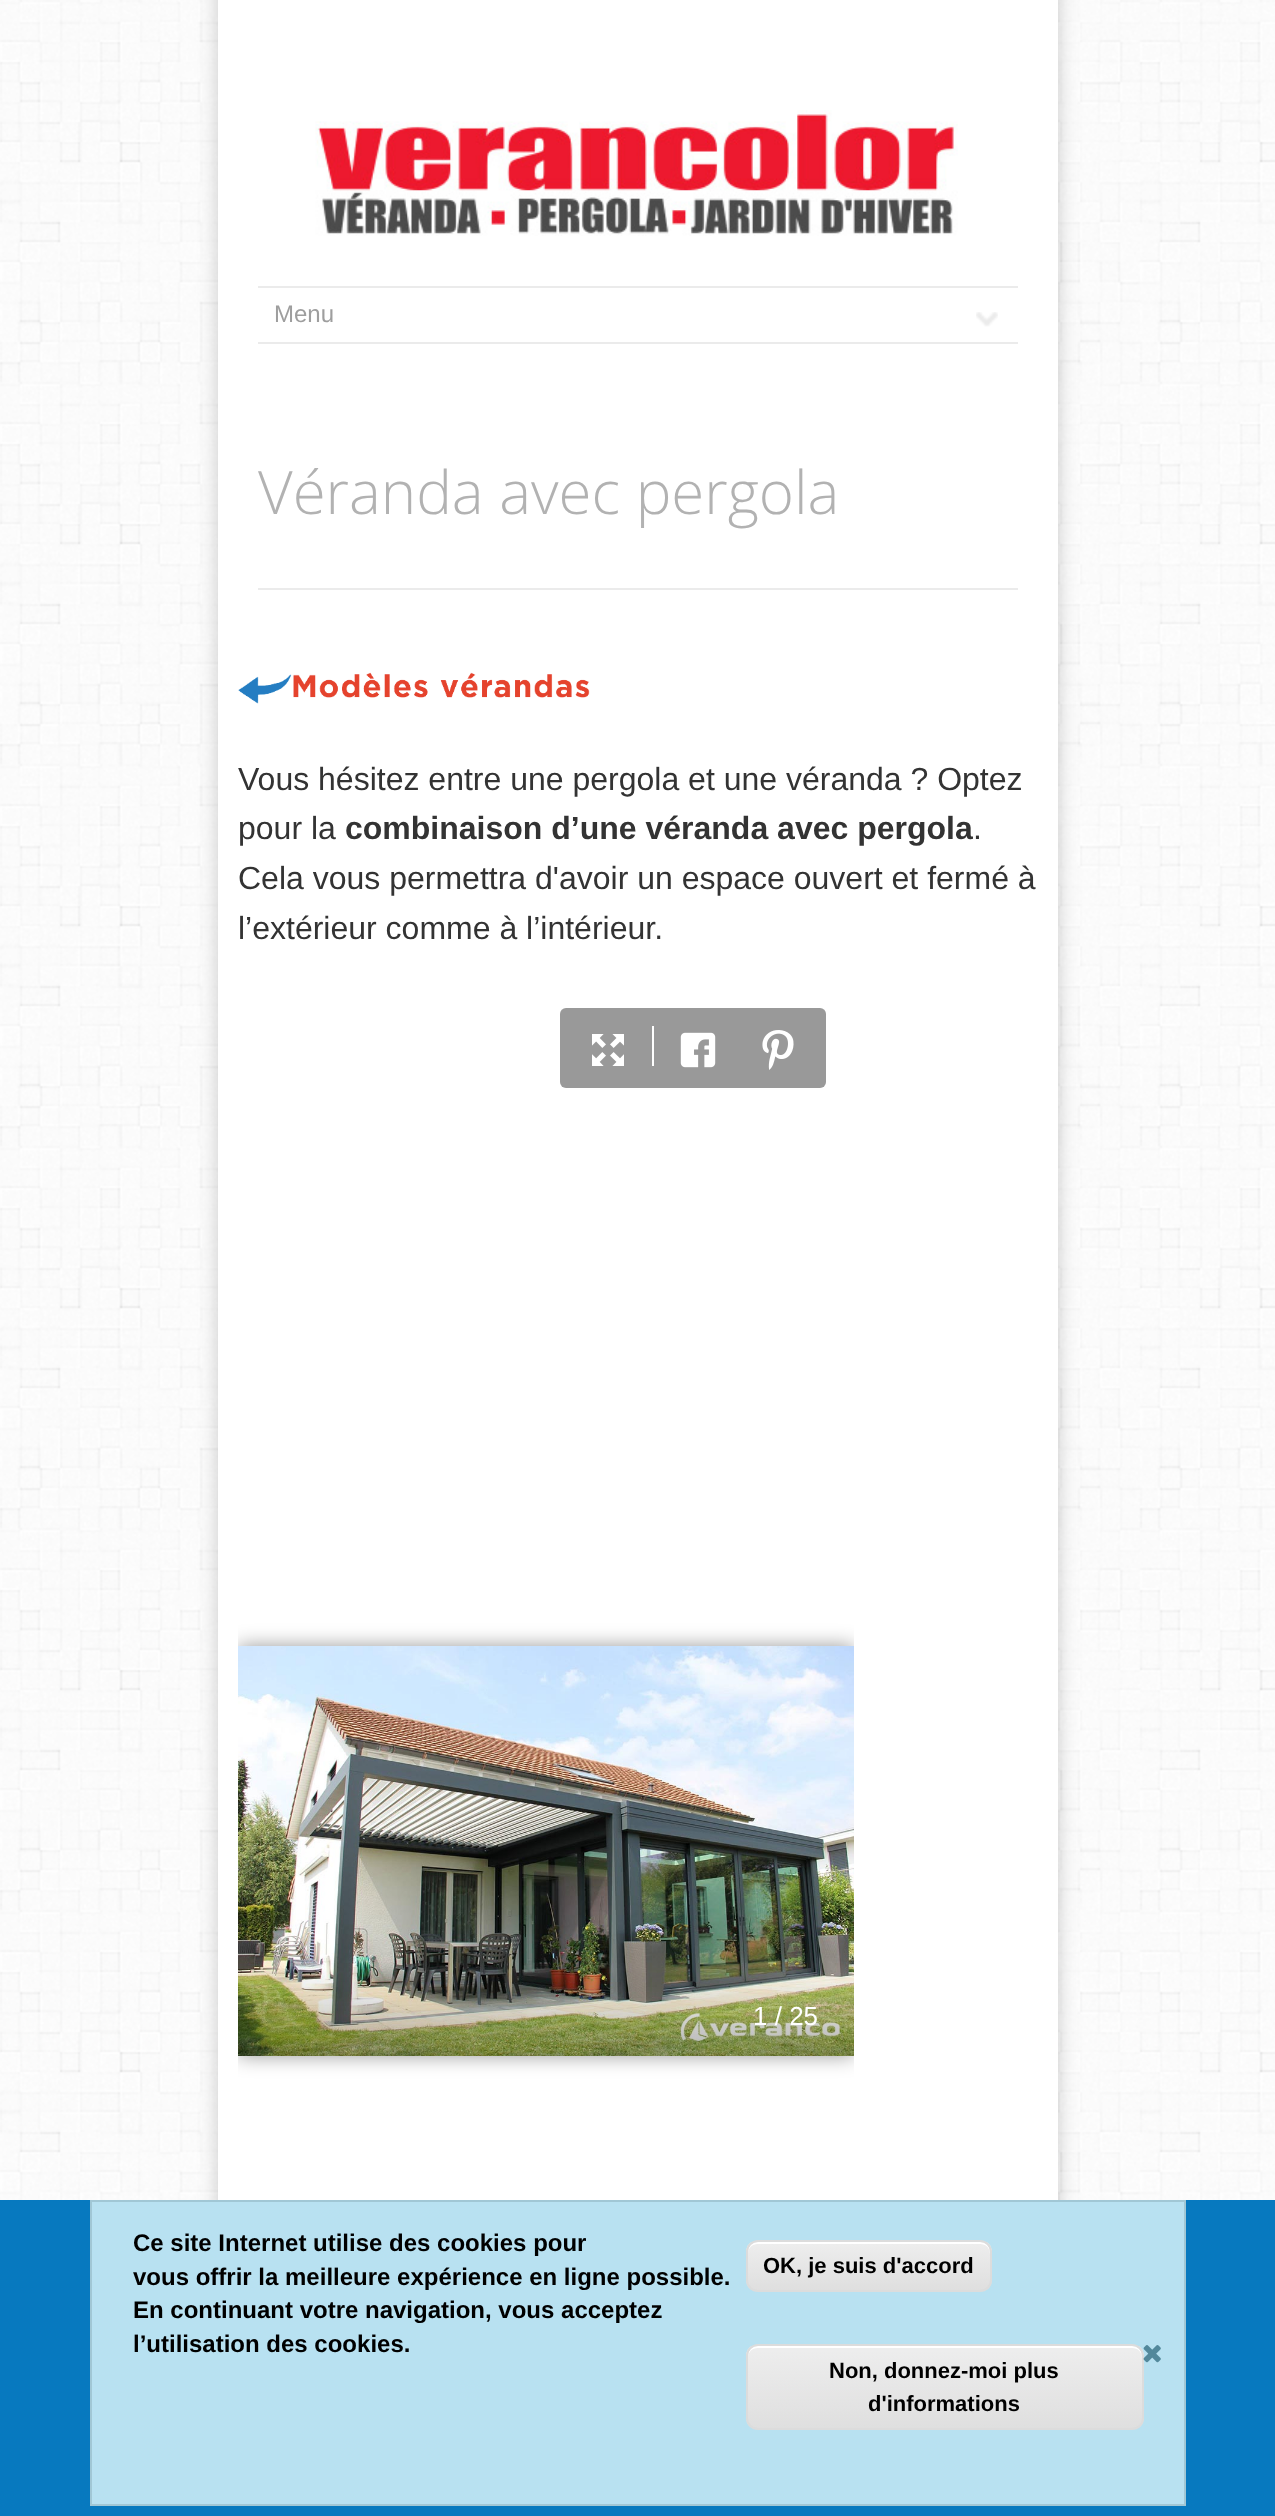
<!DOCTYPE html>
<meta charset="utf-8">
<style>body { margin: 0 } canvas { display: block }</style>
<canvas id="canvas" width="1275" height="2516"></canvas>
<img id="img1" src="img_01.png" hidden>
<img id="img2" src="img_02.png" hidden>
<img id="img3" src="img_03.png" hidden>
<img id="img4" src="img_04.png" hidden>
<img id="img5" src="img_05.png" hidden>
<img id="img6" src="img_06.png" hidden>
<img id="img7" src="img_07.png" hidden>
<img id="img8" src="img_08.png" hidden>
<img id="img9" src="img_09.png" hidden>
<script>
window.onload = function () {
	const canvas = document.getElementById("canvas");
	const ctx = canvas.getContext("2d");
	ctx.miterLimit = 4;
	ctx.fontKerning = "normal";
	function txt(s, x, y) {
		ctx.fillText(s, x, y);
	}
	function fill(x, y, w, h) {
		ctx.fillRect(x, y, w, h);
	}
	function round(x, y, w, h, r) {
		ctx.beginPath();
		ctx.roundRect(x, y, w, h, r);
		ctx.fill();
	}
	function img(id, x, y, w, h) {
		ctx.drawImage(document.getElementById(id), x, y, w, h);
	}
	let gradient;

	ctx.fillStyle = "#FFFFFF";
	fill(0, 0, 1275, 2516);
	img("img1", 0, 0, 1275, 2200);
	ctx.fillStyle = "rgba(0, 0, 0, 0.2)";
	ctx.filter = "blur(10px)";
	ctx.beginPath();
	ctx.rect(218, -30, 840, 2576);
	ctx.fill();
	ctx.filter = "none";
	ctx.fillStyle = "#FFFFFF";
	fill(218, 0, 840, 2200);
	img("img2", 315, 110, 643, 126);
	img("img3", 976, 312, 22, 15);
	ctx.fillStyle = "#EBEBEB";
	fill(258, 286, 760, 2);
	fill(258, 342, 760, 2);
	fill(258, 588, 760, 2);
	img("img4", 238, 672, 352, 32);
	ctx.fillStyle = "#999999";
	round(560, 1008, 266, 80, 6);
	img("img5", 592, 1034, 32, 32);
	ctx.fillStyle = "#FFFFFF";
	fill(652, 1026, 2, 40);
	img("img6", 680, 1032, 36, 36);
	img("img7", 762, 1030, 32, 40);
	ctx.save();
	ctx.beginPath();
	ctx.rect(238, 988, 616, 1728);
	ctx.clip();
	ctx.fillStyle = "rgba(0, 0, 0, 0.4)";
	ctx.filter = "blur(10px)";
	ctx.beginPath();
	ctx.rect(238, 1646, 616, 410);
	ctx.fill();
	ctx.filter = "none";
	ctx.restore();
	img("img8", 238, 1646, 616, 410);
	ctx.fillStyle = "#0779BF";
	fill(0, 2200, 1275, 316);
	ctx.fillStyle = "#B8E1F1";
	ctx.beginPath();
	ctx.rect(91, 2201, 1094, 304);
	ctx.fill();
	ctx.strokeStyle = "#A1C7D5";
	ctx.lineWidth = 2;
	ctx.stroke();
	ctx.save();
	ctx.beginPath();
	ctx.roundRect(746, 2240, 246, 52, 12);
	ctx.clip();
	gradient = ctx.createLinearGradient(869, 2242, 869, 2290);
	gradient.addColorStop(0.05, "#EDEDED");
	gradient.addColorStop(1, "#DFDFDF");
	ctx.fillStyle = gradient;
	fill(746, 2242, 246, 48);
	ctx.restore();
	ctx.fillStyle = "#FFFFFF";
	ctx.beginPath();
	ctx.moveTo(758, 2244);
	ctx.lineTo(980, 2244);
	ctx.bezierCurveTo(986, 2244, 990, 2248, 990, 2254);
	ctx.lineTo(990, 2252);
	ctx.bezierCurveTo(990, 2246, 986, 2242, 980, 2242);
	ctx.lineTo(758, 2242);
	ctx.bezierCurveTo(752, 2242, 748, 2246, 748, 2252);
	ctx.lineTo(748, 2254);
	ctx.bezierCurveTo(748, 2248, 752, 2244, 758, 2244);
	ctx.closePath();
	ctx.fill();
	ctx.beginPath();
	ctx.roundRect(747, 2241, 244, 50, 11);
	ctx.strokeStyle = "#DCDCDC";
	ctx.stroke();
	ctx.save();
	ctx.beginPath();
	ctx.roundRect(746, 2344, 398, 86, 12);
	ctx.clip();
	gradient = ctx.createLinearGradient(945, 2346, 945, 2428);
	gradient.addColorStop(0.05, "#EDEDED");
	gradient.addColorStop(1, "#DFDFDF");
	ctx.fillStyle = gradient;
	fill(746, 2346, 398, 82);
	ctx.restore();
	ctx.beginPath();
	ctx.moveTo(758, 2348);
	ctx.lineTo(1132, 2348);
	ctx.bezierCurveTo(1138, 2348, 1142, 2352, 1142, 2358);
	ctx.lineTo(1142, 2356);
	ctx.bezierCurveTo(1142, 2350, 1138, 2346, 1132, 2346);
	ctx.lineTo(758, 2346);
	ctx.bezierCurveTo(752, 2346, 748, 2350, 748, 2356);
	ctx.lineTo(748, 2358);
	ctx.bezierCurveTo(748, 2352, 752, 2348, 758, 2348);
	ctx.closePath();
	ctx.fill();
	ctx.beginPath();
	ctx.roundRect(747, 2345, 396, 84, 11);
	ctx.stroke();
	img("img9", 1143, 2345, 18, 18);
	ctx.font = "24px Liberation Sans";
	ctx.fillStyle = "#9E9E9E";
	txt("Menu", 274, 322);
	ctx.font = "300 60px Open Sans";
	ctx.fillStyle = "#B2B2B2";
	txt("Véranda avec pergola", 258, 514);
	ctx.font = "32px Liberation Sans";
	ctx.fillStyle = "#333333";
	txt("Vous hésitez entre une pergola et une véranda ? Optez", 238, 790);
	txt("pour la", 238, 839);
	ctx.font = "bold 32px Liberation Sans";
	txt("combinaison d’une véranda avec pergola", 345, 839);
	ctx.font = "32px Liberation Sans";
	txt(".", 973, 839);
	txt("Cela vous permettra d'avoir un espace ouvert et fermé à", 238, 889);
	txt("l’extérieur comme à l’intérieur.", 238, 939);
	ctx.font = "26px Liberation Sans";
	ctx.fillStyle = "#FFFFFF";
	txt("1 / 25", 753, 2025);
	ctx.font = "bold 24px Liberation Sans";
	ctx.fillStyle = "#000000";
	txt("Ce site Internet utilise des cookies pour", 133, 2251);
	txt("vous offrir la meilleure expérience en ligne possible.", 133, 2285);
	txt("En continuant votre navigation, vous acceptez", 133, 2318);
	txt("l’utilisation des cookies.", 133, 2352);
	ctx.font = "bold 22px Liberation Sans";
	txt("OK, je suis d'accord", 763, 2273);
	txt("Non, donnez-moi plus", 829, 2378);
	txt("d'informations", 868, 2411);
};
</script>
